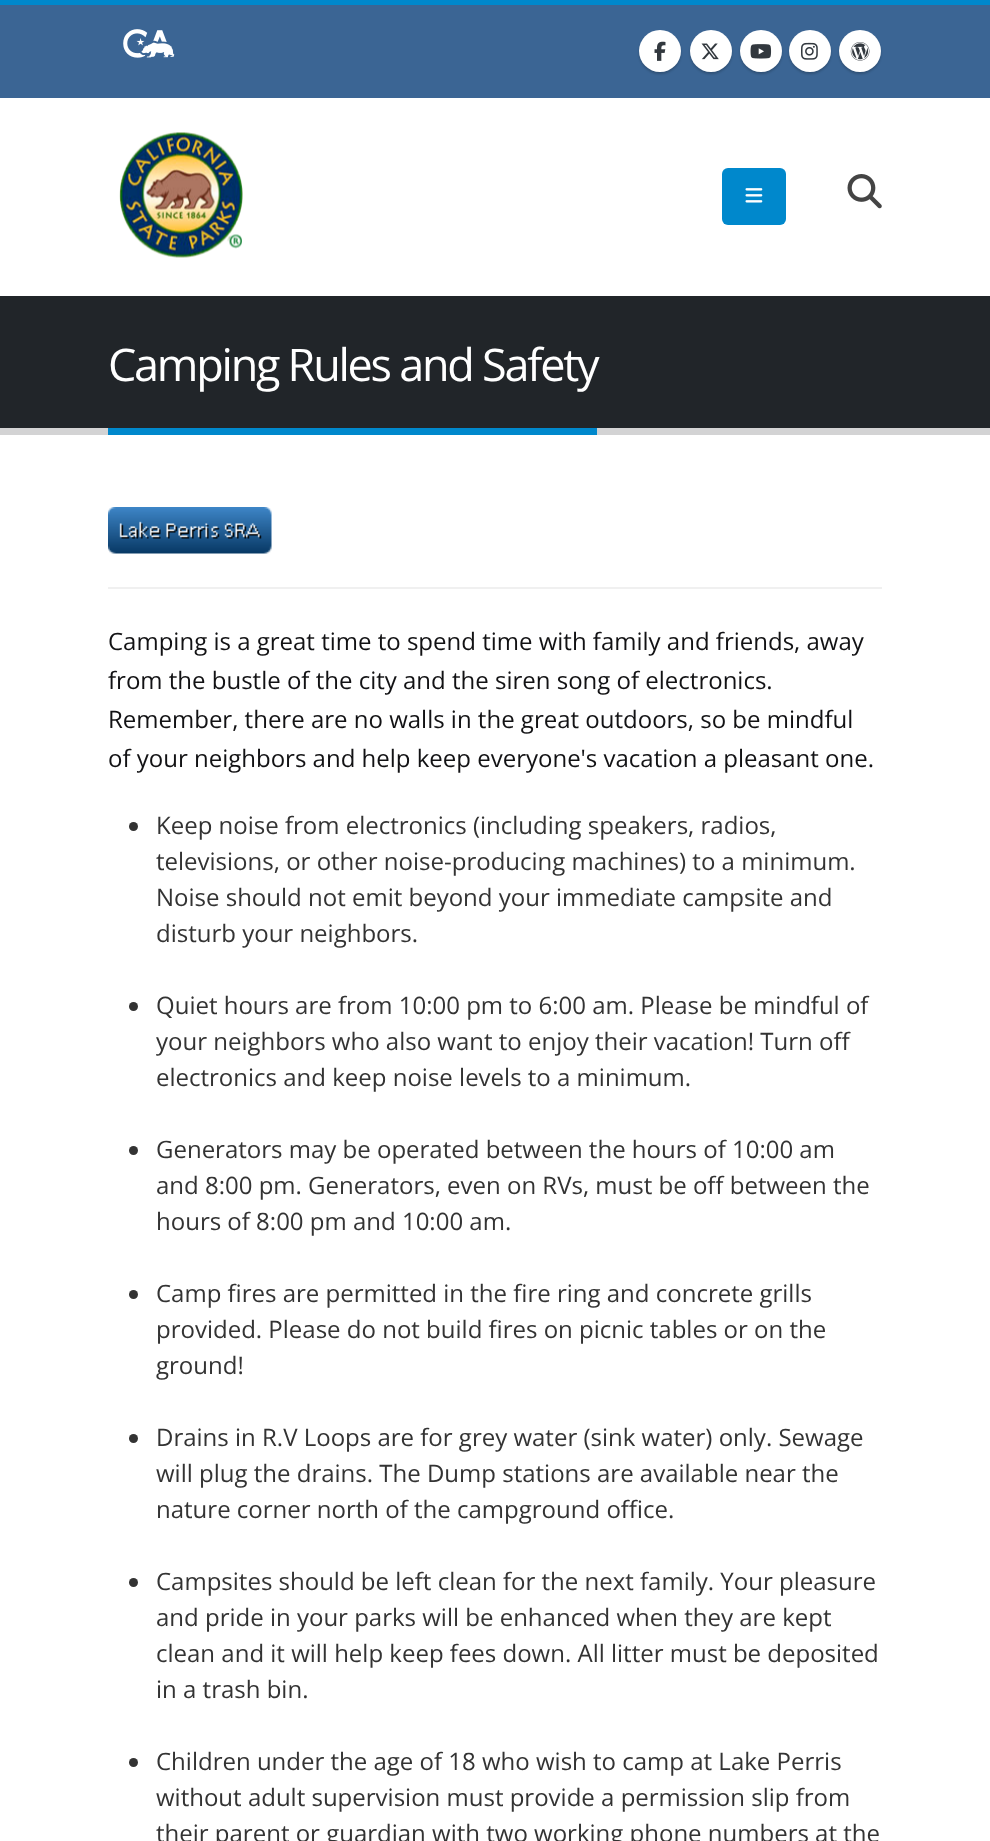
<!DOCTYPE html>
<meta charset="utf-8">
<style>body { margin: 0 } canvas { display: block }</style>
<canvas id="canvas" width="990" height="1841"></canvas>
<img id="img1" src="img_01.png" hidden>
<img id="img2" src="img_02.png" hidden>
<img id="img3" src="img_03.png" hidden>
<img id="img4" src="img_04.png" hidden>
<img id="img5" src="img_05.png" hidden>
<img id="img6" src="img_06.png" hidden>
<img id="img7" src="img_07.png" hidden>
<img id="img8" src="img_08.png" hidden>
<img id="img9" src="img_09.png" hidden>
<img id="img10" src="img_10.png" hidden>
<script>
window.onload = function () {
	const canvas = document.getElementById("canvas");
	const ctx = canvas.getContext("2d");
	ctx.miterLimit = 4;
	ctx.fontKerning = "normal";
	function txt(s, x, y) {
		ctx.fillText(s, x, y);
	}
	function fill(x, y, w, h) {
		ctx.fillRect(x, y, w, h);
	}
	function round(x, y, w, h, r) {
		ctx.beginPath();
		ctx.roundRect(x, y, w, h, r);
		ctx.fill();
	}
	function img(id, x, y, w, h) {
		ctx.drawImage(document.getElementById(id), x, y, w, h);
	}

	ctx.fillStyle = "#FFFFFF";
	fill(0, 0, 990, 1841);
	ctx.fillStyle = "#0088CC";
	fill(0, 0, 990, 5);
	ctx.fillStyle = "#3B6594";
	fill(0, 5, 990, 93);
	img("img1", 123, 29, 52, 29);
	ctx.fillStyle = "rgba(0, 0, 0, 0.2)";
	ctx.filter = "blur(1px)";
	ctx.beginPath();
	ctx.roundRect(639, 32, 42, 42, 21);
	ctx.fill();
	ctx.filter = "none";
	ctx.fillStyle = "#FFFFFF";
	ctx.beginPath();
	ctx.arc(660, 51, 21, 0, Math.PI * 2);
	ctx.fill();
	img("img2", 654, 41, 12, 20);
	ctx.fillStyle = "rgba(0, 0, 0, 0.2)";
	ctx.filter = "blur(1px)";
	ctx.beginPath();
	ctx.roundRect(690, 32, 42, 42, 21);
	ctx.fill();
	ctx.filter = "none";
	ctx.fillStyle = "#FFFFFF";
	ctx.beginPath();
	ctx.arc(711, 51, 21, 0, Math.PI * 2);
	ctx.fill();
	img("img3", 701, 43, 18, 17);
	ctx.fillStyle = "rgba(0, 0, 0, 0.2)";
	ctx.filter = "blur(1px)";
	ctx.beginPath();
	ctx.roundRect(740, 32, 42, 42, 21);
	ctx.fill();
	ctx.filter = "none";
	ctx.fillStyle = "#FFFFFF";
	ctx.beginPath();
	ctx.arc(761, 51, 21, 0, Math.PI * 2);
	ctx.fill();
	img("img4", 750, 44, 22, 15);
	ctx.fillStyle = "rgba(0, 0, 0, 0.2)";
	ctx.filter = "blur(1px)";
	ctx.beginPath();
	ctx.roundRect(789, 32, 42, 42, 21);
	ctx.fill();
	ctx.filter = "none";
	ctx.fillStyle = "#FFFFFF";
	ctx.beginPath();
	ctx.arc(810, 51, 21, 0, Math.PI * 2);
	ctx.fill();
	img("img5", 801, 42, 17, 18);
	ctx.fillStyle = "rgba(0, 0, 0, 0.2)";
	ctx.filter = "blur(1px)";
	ctx.beginPath();
	ctx.roundRect(839, 32, 42, 42, 21);
	ctx.fill();
	ctx.filter = "none";
	ctx.fillStyle = "#FFFFFF";
	ctx.beginPath();
	ctx.arc(860, 51, 21, 0, Math.PI * 2);
	ctx.fill();
	img("img6", 850, 42, 20, 19);
	img("img7", 119, 132, 124, 126);
	ctx.fillStyle = "#0088CC";
	round(722, 168, 64, 57, 6);
	img("img8", 745, 188, 18, 15);
	img("img9", 847, 174, 35, 35);
	ctx.fillStyle = "#212529";
	fill(0, 296, 990, 132);
	ctx.fillStyle = "#D3D3D4";
	fill(0, 428, 990, 7);
	ctx.fillStyle = "#0088CC";
	fill(108, 428, 489, 7);
	img("img10", 108, 507, 164, 47);
	ctx.fillStyle = "#F0F0F0";
	fill(108, 587, 774, 2);
	ctx.fillStyle = "#333333";
	ctx.beginPath();
	ctx.arc(133.5, 826.5, 4.5, 0, Math.PI * 2);
	ctx.fill();
	ctx.beginPath();
	ctx.arc(133.5, 1006.5, 4.5, 0, Math.PI * 2);
	ctx.fill();
	ctx.beginPath();
	ctx.arc(133.5, 1150.5, 4.5, 0, Math.PI * 2);
	ctx.fill();
	ctx.beginPath();
	ctx.arc(133.5, 1294.5, 4.5, 0, Math.PI * 2);
	ctx.fill();
	ctx.beginPath();
	ctx.arc(133.5, 1438.5, 4.5, 0, Math.PI * 2);
	ctx.fill();
	ctx.beginPath();
	ctx.arc(133.5, 1582.5, 4.5, 0, Math.PI * 2);
	ctx.fill();
	ctx.beginPath();
	ctx.arc(133.5, 1762.5, 4.5, 0, Math.PI * 2);
	ctx.fill();
	ctx.letterSpacing = "-2.25px";
	ctx.font = "45px Open Sans";
	ctx.fillStyle = "#FFFFFF";
	txt("Camping Rules and Safety", 108, 381);
	ctx.letterSpacing = "0px";
	ctx.font = "24px Open Sans";
	ctx.fillStyle = "#121214";
	txt("Camping is a great time to spend time with family and friends, away", 108, 650);
	txt("from the bustle of the city and the siren song of electronics.", 108, 689);
	txt("Remember, there are no walls in the great outdoors, so be mindful", 108, 728);
	txt("of your neighbors and help keep everyone's vacation a pleasant one.", 108, 767);
	ctx.fillStyle = "#333333";
	txt("Keep noise from electronics (including speakers, radios,", 156, 834);
	txt("televisions, or other noise-producing machines) to a minimum.", 156, 870);
	txt("Noise should not emit beyond your immediate campsite and", 156, 906);
	txt("disturb your neighbors.", 156, 942);
	txt("Quiet hours are from 10:00 pm to 6:00 am. Please be mindful of", 156, 1014);
	txt("your neighbors who also want to enjoy their vacation! Turn off", 156, 1050);
	txt("electronics and keep noise levels to a minimum.", 156, 1086);
	txt("Generators may be operated between the hours of 10:00 am", 156, 1158);
	txt("and 8:00 pm. Generators, even on RVs, must be off between the", 156, 1194);
	txt("hours of 8:00 pm and 10:00 am.", 156, 1230);
	txt("Camp fires are permitted in the fire ring and concrete grills", 156, 1302);
	txt("provided. Please do not build fires on picnic tables or on the", 156, 1338);
	txt("ground!", 156, 1374);
	txt("Drains in R.V Loops are for grey water (sink water) only. Sewage", 156, 1446);
	txt("will plug the drains. The Dump stations are available near the", 156, 1482);
	txt("nature corner north of the campground office.", 156, 1518);
	txt("Campsites should be left clean for the next family. Your pleasure", 156, 1590);
	txt("and pride in your parks will be enhanced when they are kept", 156, 1626);
	txt("clean and it will help keep fees down. All litter must be deposited", 156, 1662);
	txt("in a trash bin.", 156, 1698);
	txt("Children under the age of 18 who wish to camp at Lake Perris", 156, 1770);
	txt("without adult supervision must provide a permission slip from", 156, 1806);
	txt("their parent or guardian with two working phone numbers at the", 156, 1842);
};
</script>
